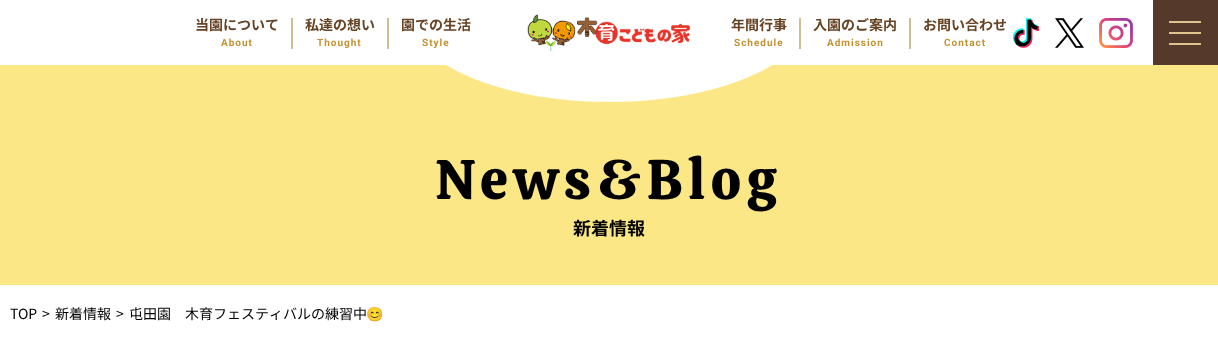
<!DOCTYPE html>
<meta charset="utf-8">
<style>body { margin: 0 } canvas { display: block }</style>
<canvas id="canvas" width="1218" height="337"></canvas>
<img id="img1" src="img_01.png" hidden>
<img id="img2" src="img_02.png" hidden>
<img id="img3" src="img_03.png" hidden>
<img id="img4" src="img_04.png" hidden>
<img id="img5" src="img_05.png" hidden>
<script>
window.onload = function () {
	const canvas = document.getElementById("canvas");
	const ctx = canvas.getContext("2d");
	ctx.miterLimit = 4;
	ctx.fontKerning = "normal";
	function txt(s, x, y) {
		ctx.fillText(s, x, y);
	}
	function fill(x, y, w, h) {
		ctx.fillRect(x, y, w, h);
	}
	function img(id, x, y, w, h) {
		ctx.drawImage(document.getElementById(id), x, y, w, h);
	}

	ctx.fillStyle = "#FFFFFF";
	fill(0, 0, 1218, 337);
	img("img1", 527, 14, 163, 38);
	ctx.fillStyle = "#CABF95";
	fill(291, 18, 2, 31);
	fill(387, 18, 2, 31);
	fill(799, 18, 2, 31);
	fill(909, 18, 2, 31);
	img("img2", 1013, 18, 26, 30);
	img("img3", 1055, 18, 29, 30);
	img("img4", 1099, 18, 34, 30);
	ctx.fillStyle = "#553A2B";
	fill(1153, 0, 65, 65);
	ctx.fillStyle = "#DFC28C";
	fill(1169, 21, 32, 2);
	fill(1169, 32, 32, 2);
	fill(1169, 43, 32, 2);
	ctx.fillStyle = "#FBE785";
	fill(0, 65, 1218, 220);
	img("img5", 445, 65, 328, 37);
	ctx.font = "bold 14px Noto Sans JP";
	ctx.fillStyle = "#664324";
	txt("当園について", 195, 30);
	ctx.letterSpacing = "1px";
	ctx.font = "bold 10px Roboto";
	ctx.fillStyle = "#C49131";
	txt("About", 221, 46);
	ctx.letterSpacing = "0px";
	ctx.font = "bold 14px Noto Sans JP";
	ctx.fillStyle = "#664324";
	txt("私達の想い", 305, 30);
	ctx.letterSpacing = "1px";
	ctx.font = "bold 10px Roboto";
	ctx.fillStyle = "#C49131";
	txt("Thought", 317, 46);
	ctx.letterSpacing = "0px";
	ctx.font = "bold 14px Noto Sans JP";
	ctx.fillStyle = "#664324";
	txt("園での生活", 401, 30);
	ctx.letterSpacing = "1px";
	ctx.font = "bold 10px Roboto";
	ctx.fillStyle = "#C49131";
	txt("Style", 422, 46);
	ctx.letterSpacing = "0px";
	ctx.font = "bold 14px Noto Sans JP";
	ctx.fillStyle = "#664324";
	txt("年間行事", 731, 30);
	ctx.letterSpacing = "1px";
	ctx.font = "bold 10px Roboto";
	ctx.fillStyle = "#C49131";
	txt("Schedule", 734, 46);
	ctx.letterSpacing = "0px";
	ctx.font = "bold 14px Noto Sans JP";
	ctx.fillStyle = "#664324";
	txt("入園のご案内", 813, 30);
	ctx.letterSpacing = "1px";
	ctx.font = "bold 10px Roboto";
	ctx.fillStyle = "#C49131";
	txt("Admission", 827, 46);
	ctx.letterSpacing = "0px";
	ctx.font = "bold 14px Noto Sans JP";
	ctx.fillStyle = "#664324";
	txt("お問い合わせ", 923, 30);
	ctx.letterSpacing = "1px";
	ctx.font = "bold 10px Roboto";
	ctx.fillStyle = "#C49131";
	txt("Contact", 944, 46);
	ctx.letterSpacing = "5.5px";
	ctx.font = "56px Calistoga";
	ctx.fillStyle = "#000000";
	txt("News&Blog", 435, 199);
	ctx.letterSpacing = "0px";
	ctx.font = "bold 18px Noto Sans JP";
	txt("新着情報", 573, 235);
	ctx.font = "14px Noto Sans JP";
	txt("TOP", 10, 319);
	txt(">", 42, 319);
	txt("新着情報", 55, 319);
	txt(">", 116, 319);
	txt("屯田園　木育フェスティバルの練習中", 129, 319);
	ctx.font = "14px Noto Color Emoji";
	txt("😊", 366, 319);
};
</script>
